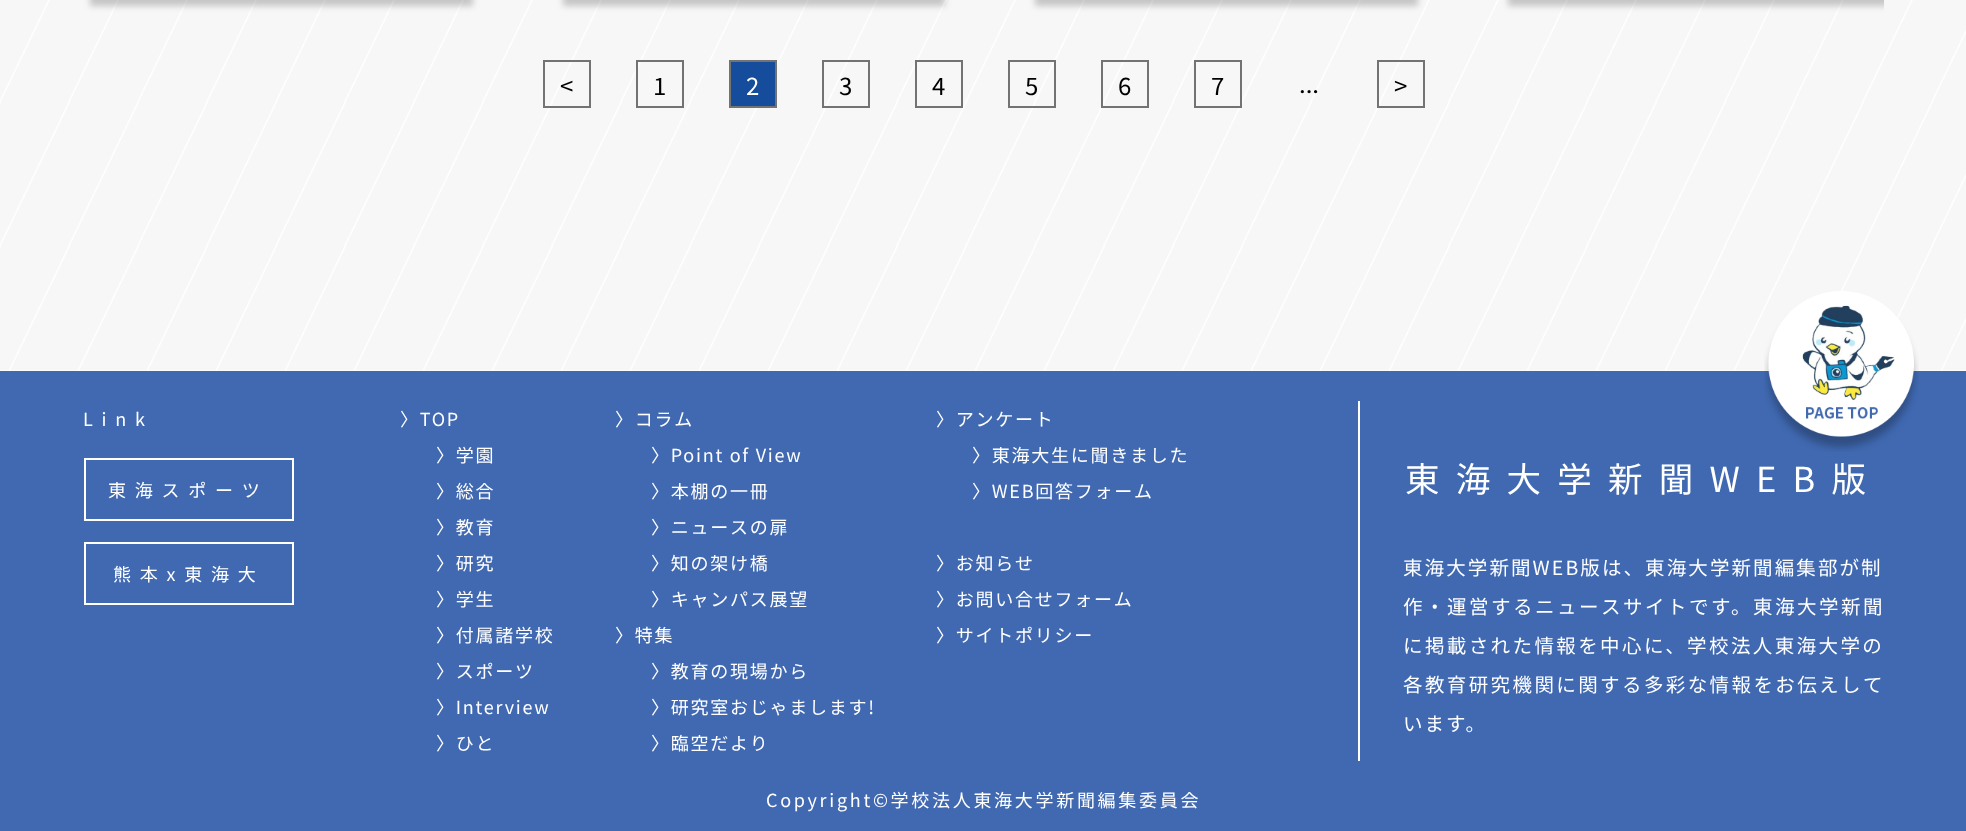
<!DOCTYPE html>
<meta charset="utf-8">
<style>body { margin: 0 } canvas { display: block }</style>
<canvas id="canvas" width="1966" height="831"></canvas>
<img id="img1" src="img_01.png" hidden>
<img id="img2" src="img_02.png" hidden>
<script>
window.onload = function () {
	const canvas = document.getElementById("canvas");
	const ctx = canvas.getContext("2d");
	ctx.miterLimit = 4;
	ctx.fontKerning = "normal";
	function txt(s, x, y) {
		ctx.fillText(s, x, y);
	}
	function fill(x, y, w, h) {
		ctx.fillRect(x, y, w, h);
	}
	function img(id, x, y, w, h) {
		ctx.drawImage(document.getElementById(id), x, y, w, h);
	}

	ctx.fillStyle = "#FFFFFF";
	fill(0, 0, 1966, 831);
	img("img1", 0, 0, 1966, 371);
	ctx.fillStyle = "rgba(0, 0, 0, 0.2)";
	ctx.filter = "blur(3px)";
	ctx.beginPath();
	ctx.rect(90, -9, 383, 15);
	ctx.fill();
	ctx.filter = "none";
	ctx.filter = "blur(3px)";
	ctx.beginPath();
	ctx.rect(563, -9, 382, 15);
	ctx.fill();
	ctx.filter = "none";
	ctx.filter = "blur(3px)";
	ctx.beginPath();
	ctx.rect(1035, -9, 383, 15);
	ctx.fill();
	ctx.filter = "none";
	ctx.save();
	ctx.beginPath();
	ctx.rect(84, 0, 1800, 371);
	ctx.clip();
	ctx.filter = "blur(3px)";
	ctx.beginPath();
	ctx.rect(1508, -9, 382, 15);
	ctx.fill();
	ctx.filter = "none";
	ctx.restore();
	ctx.strokeStyle = "#737373";
	ctx.lineWidth = 2;
	ctx.strokeRect(544, 61, 46, 46);
	ctx.strokeRect(637, 61, 46, 46);
	ctx.fillStyle = "#154C9C";
	ctx.beginPath();
	ctx.rect(730, 61, 46, 46);
	ctx.fill();
	ctx.stroke();
	ctx.strokeRect(823, 61, 46, 46);
	ctx.strokeRect(916, 61, 46, 46);
	ctx.strokeRect(1009, 61, 46, 46);
	ctx.strokeRect(1102, 61, 46, 46);
	ctx.strokeRect(1195, 61, 46, 46);
	ctx.strokeRect(1378, 61, 46, 46);
	ctx.fillStyle = "#4069B1";
	fill(0, 371, 1966, 460);
	img("img2", 1764, 291, 155, 161);
	ctx.strokeStyle = "#FFFFFF";
	ctx.strokeRect(85, 459, 208, 61);
	ctx.strokeRect(85, 543, 208, 61);
	ctx.fillStyle = "#FFFFFF";
	fill(1358, 401, 2, 360);
	ctx.font = "24px Noto Sans JP";
	ctx.fillStyle = "#000000";
	txt("<", 560, 95);
	txt("1", 653, 95);
	ctx.fillStyle = "#FFFFFF";
	txt("2", 746, 95);
	ctx.fillStyle = "#000000";
	txt("3", 839, 95);
	txt("4", 932, 95);
	txt("5", 1025, 95);
	txt("6", 1118, 95);
	txt("7", 1211, 95);
	txt("...", 1299, 93);
	txt(">", 1394, 95);
	ctx.letterSpacing = "8.75px";
	ctx.font = "18px Noto Sans JP";
	ctx.fillStyle = "#FFFFFF";
	txt("Link", 83, 426);
	txt("東海スポーツ", 108, 497);
	txt("熊本x東海大", 113, 581);
	ctx.letterSpacing = "1.75px";
	txt("〉TOP", 400, 426);
	txt("〉学園", 436, 462);
	txt("〉総合", 436, 498);
	txt("〉教育", 436, 534);
	txt("〉研究", 436, 570);
	txt("〉学生", 436, 606);
	txt("〉付属諸学校", 436, 642);
	txt("〉スポーツ", 436, 678);
	txt("〉Interview", 436, 714);
	txt("〉ひと", 436, 750);
	txt("〉コラム", 615, 426);
	txt("〉Point of View", 651, 462);
	txt("〉本棚の一冊", 651, 498);
	txt("〉ニュースの扉", 651, 534);
	txt("〉知の架け橋", 651, 570);
	txt("〉キャンパス展望", 651, 606);
	txt("〉特集", 615, 642);
	txt("〉教育の現場から", 651, 678);
	txt("〉研究室おじゃまします!", 651, 714);
	txt("〉臨空だより", 651, 750);
	txt("〉アンケート", 936, 426);
	txt("〉東海大生に聞きました", 972, 462);
	txt("〉WEB回答フォーム", 972, 498);
	txt("〉お知らせ", 936, 570);
	txt("〉お問い合せフォーム", 936, 606);
	txt("〉サイトポリシー", 936, 642);
	ctx.letterSpacing = "16.25px";
	ctx.font = "34.5px Noto Sans JP";
	txt("東海大学新聞WEB版", 1405, 492);
	ctx.letterSpacing = "2.1px";
	ctx.font = "19.5px Noto Sans JP";
	txt("東海大学新聞WEB版は、東海大学新聞編集部が制", 1403, 575);
	ctx.letterSpacing = "2.5px";
	txt("作・運営するニュースサイトです。東海大学新聞", 1403, 614);
	ctx.letterSpacing = "2.4px";
	txt("に掲載された情報を中心に、学校法人東海大学の", 1403, 653);
	txt("各教育研究機関に関する多彩な情報をお伝えして", 1403, 692);
	ctx.letterSpacing = "2px";
	txt("います。", 1403, 731);
	ctx.letterSpacing = "2.7px";
	ctx.font = "18px Noto Sans JP";
	txt("Copyright©学校法人東海大学新聞編集委員会", 766, 807);
};
</script>
